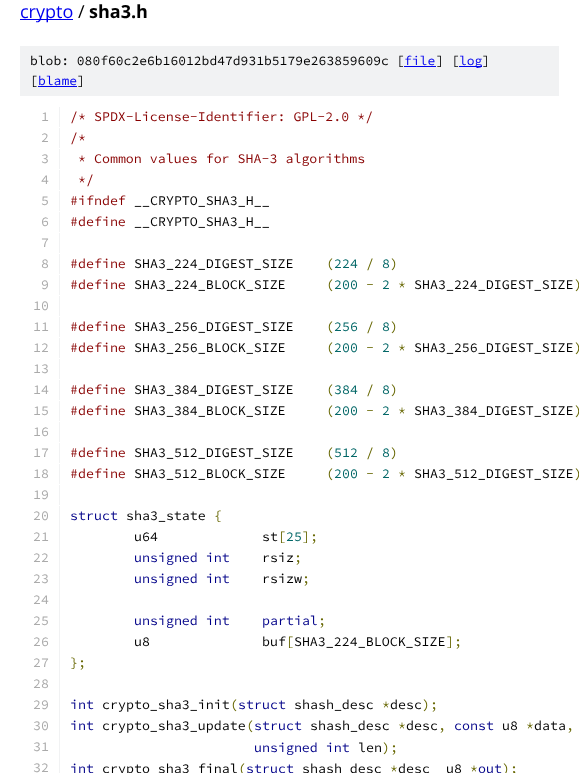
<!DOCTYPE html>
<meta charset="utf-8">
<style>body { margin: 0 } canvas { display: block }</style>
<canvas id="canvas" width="579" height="773"></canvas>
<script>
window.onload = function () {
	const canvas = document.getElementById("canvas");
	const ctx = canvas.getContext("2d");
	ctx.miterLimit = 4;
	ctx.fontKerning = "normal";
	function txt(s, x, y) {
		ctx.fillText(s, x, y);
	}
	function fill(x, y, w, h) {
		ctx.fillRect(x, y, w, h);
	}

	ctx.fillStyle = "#FFFFFF";
	fill(0, 0, 579, 773);
	ctx.fillStyle = "#0000EE";
	fill(20, 19, 53, 1);
	ctx.fillStyle = "#F1F2F3";
	fill(20, 46, 539, 50);
	ctx.fillStyle = "#0000EE";
	fill(404, 66, 32, 1);
	fill(459, 66, 23, 1);
	fill(38, 86, 39, 1);
	ctx.fillStyle = "#F1F2F3";
	fill(59, 107, 1, 20);
	fill(59, 128, 1, 20);
	fill(59, 149, 1, 20);
	fill(59, 170, 1, 20);
	fill(59, 191, 1, 20);
	fill(59, 212, 1, 20);
	fill(59, 233, 1, 20);
	fill(59, 254, 1, 20);
	fill(59, 275, 1, 20);
	fill(59, 296, 1, 20);
	fill(59, 317, 1, 20);
	fill(59, 338, 1, 20);
	fill(59, 359, 1, 20);
	fill(59, 380, 1, 20);
	fill(59, 401, 1, 20);
	fill(59, 422, 1, 20);
	fill(59, 443, 1, 20);
	fill(59, 464, 1, 20);
	fill(59, 485, 1, 20);
	fill(59, 506, 1, 267);
	ctx.font = "18px Open Sans";
	ctx.fillStyle = "#0000EE";
	txt("crypto", 20, 18);
	ctx.fillStyle = "#000000";
	txt("/", 78, 18);
	ctx.font = "bold 18px Open Sans";
	txt("sha3.h", 89, 18);
	ctx.font = "200 13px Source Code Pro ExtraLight";
	txt("blob: 080f60c2e6b16012bd47d931b5179e263859609c [", 30, 65);
	ctx.fillStyle = "#0000EE";
	txt("file", 404, 65);
	ctx.fillStyle = "#000000";
	txt("] [", 436, 65);
	ctx.fillStyle = "#0000EE";
	txt("log", 459, 65);
	ctx.fillStyle = "#000000";
	txt("]", 482, 65);
	txt("[", 30, 85);
	ctx.fillStyle = "#0000EE";
	txt("blame", 38, 85);
	ctx.fillStyle = "#000000";
	txt("]", 77, 85);
	ctx.font = "200 13.3px Source Code Pro ExtraLight";
	ctx.fillStyle = "#AAAAAA";
	txt("1", 41, 121);
	ctx.fillStyle = "#880000";
	txt("/* SPDX-License-Identifier: GPL-2.0 */", 70, 121);
	ctx.fillStyle = "#AAAAAA";
	txt("2", 41, 142);
	ctx.fillStyle = "#880000";
	txt("/*", 70, 142);
	ctx.fillStyle = "#AAAAAA";
	txt("3", 41, 163);
	ctx.fillStyle = "#880000";
	txt("* Common values for SHA-3 algorithms", 78, 163);
	ctx.fillStyle = "#AAAAAA";
	txt("4", 41, 184);
	ctx.fillStyle = "#880000";
	txt("*/", 78, 184);
	ctx.fillStyle = "#AAAAAA";
	txt("5", 41, 205);
	ctx.fillStyle = "#880000";
	txt("#ifndef", 70, 205);
	ctx.fillStyle = "#000000";
	txt("__CRYPTO_SHA3_H__", 134, 205);
	ctx.fillStyle = "#AAAAAA";
	txt("6", 41, 226);
	ctx.fillStyle = "#880000";
	txt("#define", 70, 226);
	ctx.fillStyle = "#000000";
	txt("__CRYPTO_SHA3_H__", 134, 226);
	ctx.fillStyle = "#AAAAAA";
	txt("7", 41, 247);
	txt("8", 41, 268);
	ctx.fillStyle = "#880000";
	txt("#define", 70, 268);
	ctx.fillStyle = "#000000";
	txt("SHA3_224_DIGEST_SIZE", 134, 268);
	ctx.fillStyle = "#666600";
	txt("(", 326, 268);
	ctx.fillStyle = "#006666";
	txt("224", 334, 268);
	ctx.fillStyle = "#666600";
	txt("/", 366, 268);
	ctx.fillStyle = "#006666";
	txt("8", 382, 268);
	ctx.fillStyle = "#666600";
	txt(")", 390, 268);
	ctx.fillStyle = "#AAAAAA";
	txt("9", 41, 289);
	ctx.fillStyle = "#880000";
	txt("#define", 70, 289);
	ctx.fillStyle = "#000000";
	txt("SHA3_224_BLOCK_SIZE", 134, 289);
	ctx.fillStyle = "#666600";
	txt("(", 326, 289);
	ctx.fillStyle = "#006666";
	txt("200", 334, 289);
	ctx.fillStyle = "#666600";
	txt("-", 366, 289);
	ctx.fillStyle = "#006666";
	txt("2", 382, 289);
	ctx.fillStyle = "#666600";
	txt("*", 398, 289);
	ctx.fillStyle = "#000000";
	txt("SHA3_224_DIGEST_SIZE", 414, 289);
	ctx.fillStyle = "#666600";
	txt(")", 574, 289);
	ctx.fillStyle = "#AAAAAA";
	txt("10", 33, 310);
	txt("11", 33, 331);
	ctx.fillStyle = "#880000";
	txt("#define", 70, 331);
	ctx.fillStyle = "#000000";
	txt("SHA3_256_DIGEST_SIZE", 134, 331);
	ctx.fillStyle = "#666600";
	txt("(", 326, 331);
	ctx.fillStyle = "#006666";
	txt("256", 334, 331);
	ctx.fillStyle = "#666600";
	txt("/", 366, 331);
	ctx.fillStyle = "#006666";
	txt("8", 382, 331);
	ctx.fillStyle = "#666600";
	txt(")", 390, 331);
	ctx.fillStyle = "#AAAAAA";
	txt("12", 33, 352);
	ctx.fillStyle = "#880000";
	txt("#define", 70, 352);
	ctx.fillStyle = "#000000";
	txt("SHA3_256_BLOCK_SIZE", 134, 352);
	ctx.fillStyle = "#666600";
	txt("(", 326, 352);
	ctx.fillStyle = "#006666";
	txt("200", 334, 352);
	ctx.fillStyle = "#666600";
	txt("-", 366, 352);
	ctx.fillStyle = "#006666";
	txt("2", 382, 352);
	ctx.fillStyle = "#666600";
	txt("*", 398, 352);
	ctx.fillStyle = "#000000";
	txt("SHA3_256_DIGEST_SIZE", 414, 352);
	ctx.fillStyle = "#666600";
	txt(")", 574, 352);
	ctx.fillStyle = "#AAAAAA";
	txt("13", 33, 373);
	txt("14", 33, 394);
	ctx.fillStyle = "#880000";
	txt("#define", 70, 394);
	ctx.fillStyle = "#000000";
	txt("SHA3_384_DIGEST_SIZE", 134, 394);
	ctx.fillStyle = "#666600";
	txt("(", 326, 394);
	ctx.fillStyle = "#006666";
	txt("384", 334, 394);
	ctx.fillStyle = "#666600";
	txt("/", 366, 394);
	ctx.fillStyle = "#006666";
	txt("8", 382, 394);
	ctx.fillStyle = "#666600";
	txt(")", 390, 394);
	ctx.fillStyle = "#AAAAAA";
	txt("15", 33, 415);
	ctx.fillStyle = "#880000";
	txt("#define", 70, 415);
	ctx.fillStyle = "#000000";
	txt("SHA3_384_BLOCK_SIZE", 134, 415);
	ctx.fillStyle = "#666600";
	txt("(", 326, 415);
	ctx.fillStyle = "#006666";
	txt("200", 334, 415);
	ctx.fillStyle = "#666600";
	txt("-", 366, 415);
	ctx.fillStyle = "#006666";
	txt("2", 382, 415);
	ctx.fillStyle = "#666600";
	txt("*", 398, 415);
	ctx.fillStyle = "#000000";
	txt("SHA3_384_DIGEST_SIZE", 414, 415);
	ctx.fillStyle = "#666600";
	txt(")", 574, 415);
	ctx.fillStyle = "#AAAAAA";
	txt("16", 33, 436);
	txt("17", 33, 457);
	ctx.fillStyle = "#880000";
	txt("#define", 70, 457);
	ctx.fillStyle = "#000000";
	txt("SHA3_512_DIGEST_SIZE", 134, 457);
	ctx.fillStyle = "#666600";
	txt("(", 326, 457);
	ctx.fillStyle = "#006666";
	txt("512", 334, 457);
	ctx.fillStyle = "#666600";
	txt("/", 366, 457);
	ctx.fillStyle = "#006666";
	txt("8", 382, 457);
	ctx.fillStyle = "#666600";
	txt(")", 390, 457);
	ctx.fillStyle = "#AAAAAA";
	txt("18", 33, 478);
	ctx.fillStyle = "#880000";
	txt("#define", 70, 478);
	ctx.fillStyle = "#000000";
	txt("SHA3_512_BLOCK_SIZE", 134, 478);
	ctx.fillStyle = "#666600";
	txt("(", 326, 478);
	ctx.fillStyle = "#006666";
	txt("200", 334, 478);
	ctx.fillStyle = "#666600";
	txt("-", 366, 478);
	ctx.fillStyle = "#006666";
	txt("2", 382, 478);
	ctx.fillStyle = "#666600";
	txt("*", 398, 478);
	ctx.fillStyle = "#000000";
	txt("SHA3_512_DIGEST_SIZE", 414, 478);
	ctx.fillStyle = "#666600";
	txt(")", 574, 478);
	ctx.fillStyle = "#AAAAAA";
	txt("19", 33, 499);
	txt("20", 33, 520);
	ctx.fillStyle = "#000088";
	txt("struct", 70, 520);
	ctx.fillStyle = "#000000";
	txt("sha3_state", 126, 520);
	ctx.fillStyle = "#666600";
	txt("{", 214, 520);
	ctx.fillStyle = "#AAAAAA";
	txt("21", 33, 541);
	ctx.fillStyle = "#000000";
	txt("u64", 134, 541);
	txt("st", 262, 541);
	ctx.fillStyle = "#666600";
	txt("[", 278, 541);
	ctx.fillStyle = "#006666";
	txt("25", 286, 541);
	ctx.fillStyle = "#666600";
	txt("];", 302, 541);
	ctx.fillStyle = "#AAAAAA";
	txt("22", 33, 562);
	ctx.fillStyle = "#000088";
	txt("unsigned int", 134, 562);
	ctx.fillStyle = "#000000";
	txt("rsiz", 262, 562);
	ctx.fillStyle = "#666600";
	txt(";", 294, 562);
	ctx.fillStyle = "#AAAAAA";
	txt("23", 33, 583);
	ctx.fillStyle = "#000088";
	txt("unsigned int", 134, 583);
	ctx.fillStyle = "#000000";
	txt("rsizw", 262, 583);
	ctx.fillStyle = "#666600";
	txt(";", 302, 583);
	ctx.fillStyle = "#AAAAAA";
	txt("24", 33, 604);
	txt("25", 33, 625);
	ctx.fillStyle = "#000088";
	txt("unsigned int", 134, 625);
	txt("partial", 262, 625);
	ctx.fillStyle = "#666600";
	txt(";", 318, 625);
	ctx.fillStyle = "#AAAAAA";
	txt("26", 33, 646);
	ctx.fillStyle = "#000000";
	txt("buf SHA3_224_BLOCK_SIZE", 262, 646);
	txt("u8", 134, 646);
	ctx.fillStyle = "#666600";
	txt("[", 286, 646);
	txt("];", 446, 646);
	ctx.fillStyle = "#AAAAAA";
	txt("27", 33, 667);
	ctx.fillStyle = "#666600";
	txt("};", 70, 667);
	ctx.fillStyle = "#AAAAAA";
	txt("28", 33, 688);
	txt("29", 33, 709);
	ctx.fillStyle = "#000088";
	txt("int", 70, 709);
	ctx.fillStyle = "#000000";
	txt("crypto_sha3_init", 102, 709);
	ctx.fillStyle = "#666600";
	txt("(", 230, 709);
	ctx.fillStyle = "#000088";
	txt("struct", 238, 709);
	ctx.fillStyle = "#000000";
	txt("shash_desc", 294, 709);
	ctx.fillStyle = "#666600";
	txt("*", 382, 709);
	ctx.fillStyle = "#000000";
	txt("desc", 390, 709);
	ctx.fillStyle = "#666600";
	txt(");", 422, 709);
	ctx.fillStyle = "#AAAAAA";
	txt("30", 33, 730);
	ctx.fillStyle = "#000088";
	txt("int", 70, 730);
	ctx.fillStyle = "#000000";
	txt("crypto_sha3_update", 102, 730);
	ctx.fillStyle = "#666600";
	txt("(", 246, 730);
	ctx.fillStyle = "#000088";
	txt("struct", 254, 730);
	ctx.fillStyle = "#000000";
	txt("shash_desc", 310, 730);
	ctx.fillStyle = "#666600";
	txt("*", 398, 730);
	ctx.fillStyle = "#000000";
	txt("desc", 406, 730);
	ctx.fillStyle = "#000088";
	txt("const", 454, 730);
	ctx.fillStyle = "#000000";
	txt("u8", 502, 730);
	ctx.fillStyle = "#666600";
	txt("*", 526, 730);
	ctx.fillStyle = "#000000";
	txt("data", 534, 730);
	ctx.fillStyle = "#666600";
	txt(",", 438, 730);
	txt(",", 566, 730);
	ctx.fillStyle = "#AAAAAA";
	txt("31", 33, 751);
	ctx.fillStyle = "#000088";
	txt("unsigned int", 254, 752);
	ctx.fillStyle = "#000000";
	txt("len", 358, 752);
	ctx.fillStyle = "#666600";
	txt(");", 382, 752);
	ctx.fillStyle = "#AAAAAA";
	txt("32", 33, 772);
	ctx.fillStyle = "#000088";
	txt("int", 70, 773);
	ctx.fillStyle = "#000000";
	txt("crypto_sha3_final", 102, 773);
	ctx.fillStyle = "#666600";
	txt("(", 238, 773);
	ctx.fillStyle = "#000088";
	txt("struct", 246, 773);
	ctx.fillStyle = "#000000";
	txt("shash_desc", 302, 773);
	ctx.fillStyle = "#666600";
	txt("*", 390, 773);
	ctx.fillStyle = "#000000";
	txt("desc", 398, 773);
	txt("u8", 446, 773);
	ctx.fillStyle = "#666600";
	txt("*", 470, 773);
	ctx.fillStyle = "#000088";
	txt("out", 478, 773);
	ctx.fillStyle = "#666600";
	txt(");", 502, 773);
};
</script>
